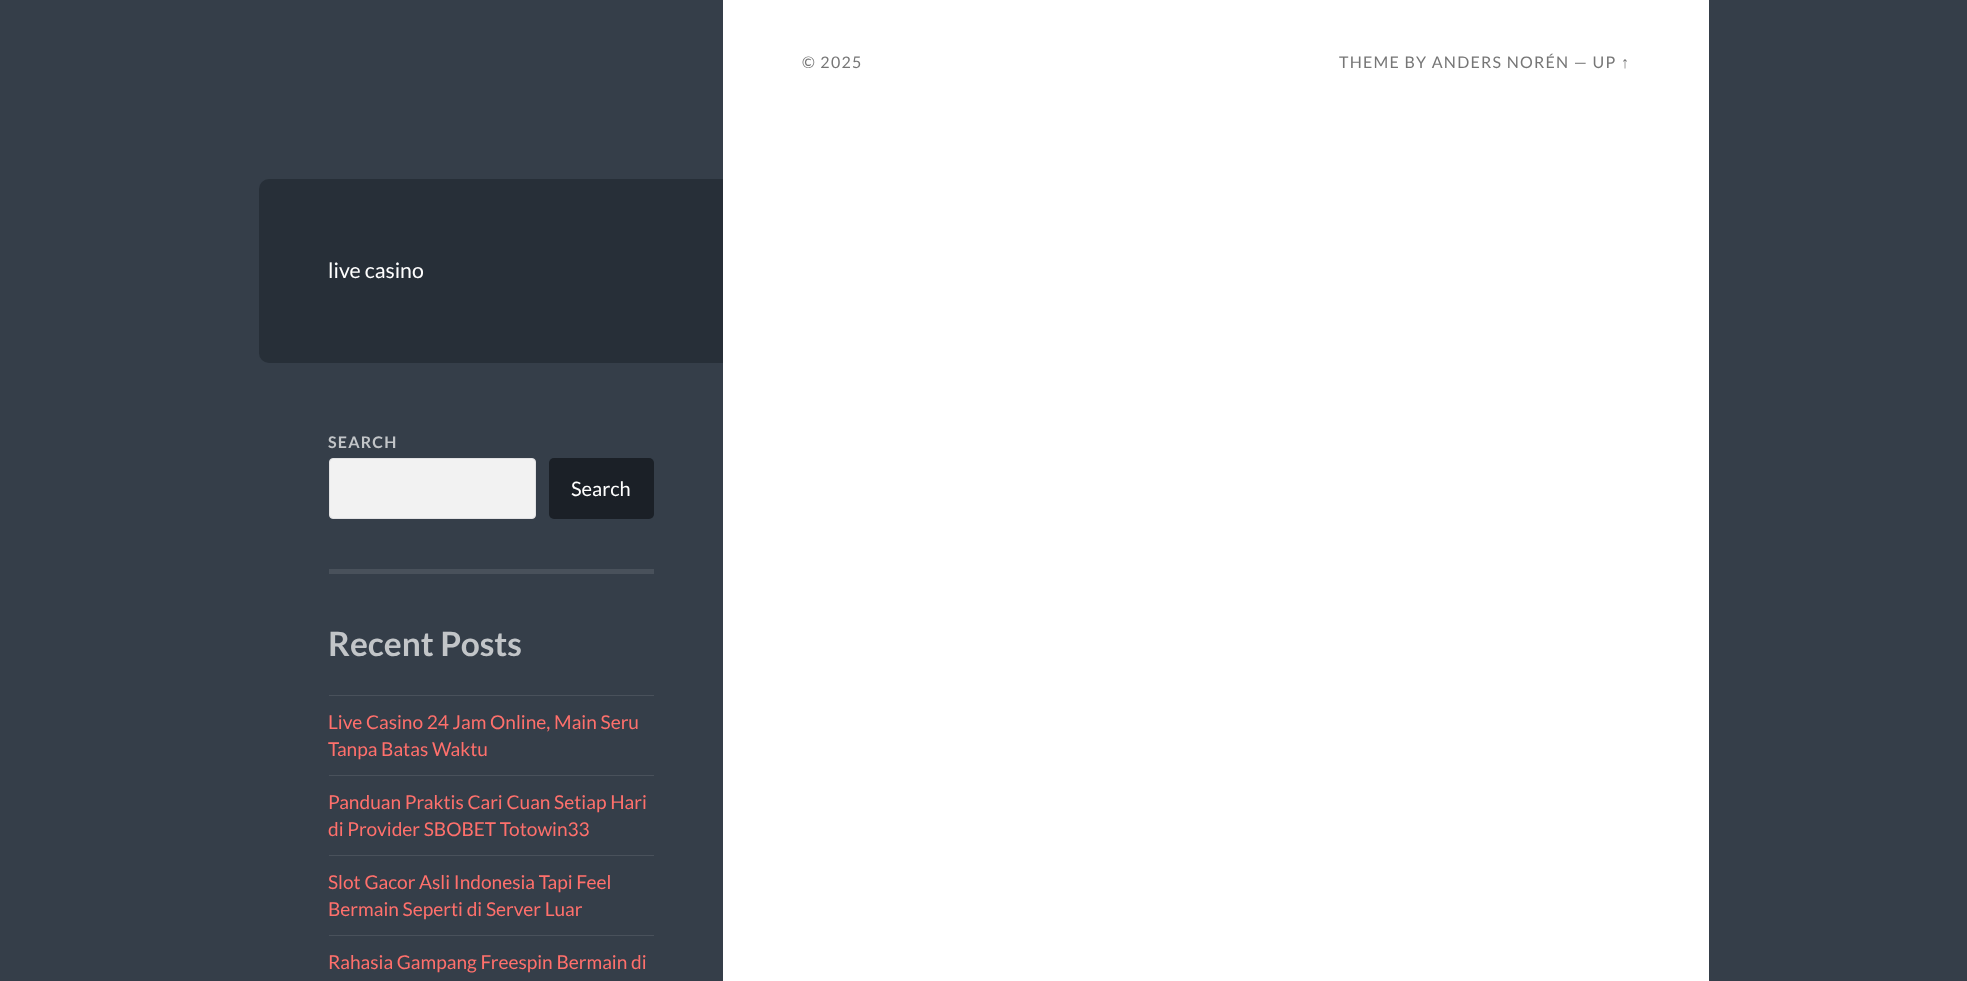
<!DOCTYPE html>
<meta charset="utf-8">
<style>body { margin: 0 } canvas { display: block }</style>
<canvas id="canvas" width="1967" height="981"></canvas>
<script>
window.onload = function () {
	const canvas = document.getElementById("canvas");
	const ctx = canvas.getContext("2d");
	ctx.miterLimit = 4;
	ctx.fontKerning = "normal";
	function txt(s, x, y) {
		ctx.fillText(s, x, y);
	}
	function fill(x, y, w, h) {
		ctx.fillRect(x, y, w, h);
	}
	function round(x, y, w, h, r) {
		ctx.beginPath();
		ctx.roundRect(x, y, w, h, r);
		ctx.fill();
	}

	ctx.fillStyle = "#353E49";
	fill(0, 0, 1967, 981);
	ctx.fillStyle = "#FFFFFF";
	fill(723, 0, 986, 981);
	ctx.fillStyle = "#272F38";
	ctx.beginPath();
	ctx.roundRect(259, 179, 464, 184, [10, 0, 0, 10]);
	ctx.fill();
	ctx.fillStyle = "#49515B";
	fill(329, 569, 325, 5);
	ctx.fillStyle = "#F2F2F2";
	ctx.beginPath();
	ctx.roundRect(329.5, 458.5, 206, 60, 3.5);
	ctx.fill();
	ctx.strokeStyle = "#E1E1E3";
	ctx.stroke();
	ctx.fillStyle = "#1B2027";
	round(549, 458, 105, 61, 5);
	ctx.fillStyle = "#49515B";
	fill(329, 695, 325, 1);
	fill(329, 775, 325, 1);
	fill(329, 855, 325, 1);
	fill(329, 935, 325, 1);
	ctx.letterSpacing = "1.25px";
	ctx.font = "16px Lato";
	ctx.fillStyle = "#767676";
	txt("© 2025", 802, 68);
	txt("THEME BY ANDERS NORÉN — UP", 1339, 68);
	ctx.font = "16px Liberation Sans";
	txt("↑", 1621, 68);
	ctx.letterSpacing = "0px";
	ctx.font = "21.25px Lato";
	ctx.fillStyle = "#FFFFFF";
	txt("live casino", 328, 278);
	ctx.letterSpacing = "1.25px";
	ctx.font = "bold 16px Lato";
	ctx.fillStyle = "#C2C5C8";
	txt("SEARCH", 328, 448);
	ctx.letterSpacing = "0px";
	ctx.font = "20px Lato";
	ctx.fillStyle = "#FFFFFF";
	txt("Search", 571, 496);
	ctx.font = "bold 33.5px Lato";
	ctx.fillStyle = "#C2C5C8";
	txt("Recent Posts", 328, 656);
	ctx.font = "19.1px Lato";
	ctx.fillStyle = "#FF706C";
	txt("Live Casino 24 Jam Online, Main Seru", 328, 729);
	txt("Tanpa Batas Waktu", 328, 756);
	txt("Panduan Praktis Cari Cuan Setiap Hari", 328, 809);
	txt("di Provider SBOBET Totowin33", 328, 836);
	txt("Slot Gacor Asli Indonesia Tapi Feel", 328, 889);
	txt("Bermain Seperti di Server Luar", 328, 916);
	txt("Rahasia Gampang Freespin Bermain di", 328, 969);
};
</script>
